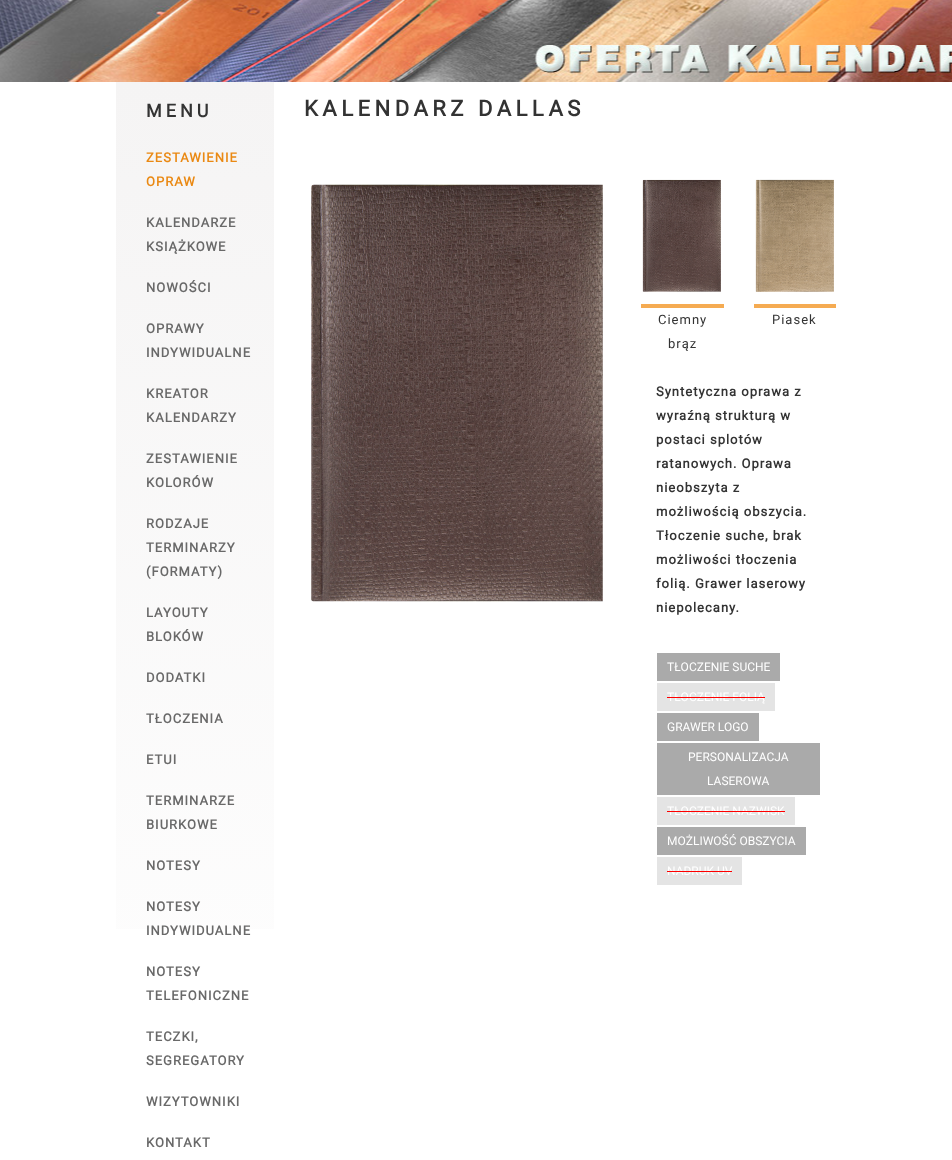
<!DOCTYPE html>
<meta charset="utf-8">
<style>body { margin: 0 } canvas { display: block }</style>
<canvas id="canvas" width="952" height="1160"></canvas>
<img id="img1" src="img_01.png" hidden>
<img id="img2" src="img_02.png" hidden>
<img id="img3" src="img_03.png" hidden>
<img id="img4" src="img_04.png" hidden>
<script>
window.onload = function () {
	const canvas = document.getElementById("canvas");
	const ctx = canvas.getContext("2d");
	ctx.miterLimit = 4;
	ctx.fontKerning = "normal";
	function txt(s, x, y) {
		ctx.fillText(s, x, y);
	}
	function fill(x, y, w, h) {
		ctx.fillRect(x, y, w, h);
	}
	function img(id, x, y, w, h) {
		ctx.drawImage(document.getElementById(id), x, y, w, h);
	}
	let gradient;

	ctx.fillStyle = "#FFFFFF";
	fill(0, 0, 952, 1160);
	img("img1", 0, 0, 952, 82);
	gradient = ctx.createLinearGradient(185, 81, 205, 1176);
	gradient.addColorStop(0, "#F5F4F4");
	gradient.addColorStop(1, "#FFFFFF");
	ctx.fillStyle = gradient;
	fill(116, 82, 158, 847);
	img("img2", 311, 184, 292, 418);
	img("img3", 642, 179, 79, 113);
	ctx.fillStyle = "#F5AB52";
	fill(641, 304, 83, 4);
	img("img4", 755, 179, 79, 113);
	fill(754, 304, 82, 4);
	ctx.fillStyle = "#AAAAAA";
	fill(657, 653, 123, 28);
	ctx.fillStyle = "#E4E4E4";
	fill(657, 683, 118, 28);
	ctx.fillStyle = "#AAAAAA";
	fill(657, 713, 102, 28);
	fill(657, 743, 163, 52);
	ctx.fillStyle = "#E4E4E4";
	fill(657, 797, 138, 28);
	ctx.fillStyle = "#AAAAAA";
	fill(657, 827, 149, 28);
	ctx.fillStyle = "#E4E4E4";
	fill(657, 857, 85, 28);
	ctx.letterSpacing = "4px";
	ctx.font = "bold 18px Roboto";
	ctx.fillStyle = "#333333";
	txt("MENU", 146, 117);
	ctx.letterSpacing = "1px";
	ctx.font = "bold 13px Roboto";
	ctx.fillStyle = "#EA8913";
	txt("ZESTAWIENIE", 146, 162);
	txt("OPRAW", 146, 186);
	ctx.fillStyle = "#696969";
	txt("KALENDARZE", 146, 227);
	txt("KSIĄŻKOWE", 146, 251);
	txt("NOWOŚCI", 146, 292);
	txt("OPRAWY", 146, 333);
	txt("INDYWIDUALNE", 146, 357);
	txt("KREATOR", 146, 398);
	txt("KALENDARZY", 146, 422);
	txt("ZESTAWIENIE", 146, 463);
	txt("KOLORÓW", 146, 487);
	txt("RODZAJE", 146, 528);
	txt("TERMINARZY", 146, 552);
	txt("(FORMATY)", 146, 576);
	txt("LAYOUTY", 146, 617);
	txt("BLOKÓW", 146, 641);
	txt("DODATKI", 146, 682);
	txt("TŁOCZENIA", 146, 723);
	txt("ETUI", 146, 764);
	txt("TERMINARZE", 146, 805);
	txt("BIURKOWE", 146, 829);
	txt("NOTESY", 146, 870);
	txt("NOTESY", 146, 911);
	txt("INDYWIDUALNE", 146, 935);
	txt("NOTESY", 146, 976);
	txt("TELEFONICZNE", 146, 1000);
	txt("TECZKI,", 146, 1041);
	txt("SEGREGATORY", 146, 1065);
	txt("WIZYTOWNIKI", 146, 1106);
	txt("KONTAKT", 146, 1147);
	ctx.letterSpacing = "4.5px";
	ctx.font = "bold 22px Roboto";
	ctx.fillStyle = "#333333";
	txt("KALENDARZ DALLAS", 304, 116);
	ctx.letterSpacing = "1px";
	ctx.font = "13px Roboto";
	txt("Ciemny", 658, 324);
	txt("brąz", 668, 348);
	txt("Piasek", 772, 324);
	ctx.font = "bold 13px Roboto";
	txt("Syntetyczna oprawa z", 656, 396);
	txt("wyraźną strukturą w", 656, 420);
	txt("postaci splotów", 656, 444);
	txt("ratanowych. Oprawa", 656, 468);
	txt("nieobszyta z", 656, 492);
	txt("możliwością obszycia.", 656, 516);
	txt("Tłoczenie suche, brak", 656, 540);
	txt("możliwości tłoczenia", 656, 564);
	txt("folią. Grawer laserowy", 656, 588);
	txt("niepolecany.", 656, 612);
	ctx.letterSpacing = "0px";
	ctx.font = "12px Roboto";
	ctx.fillStyle = "#FFFFFF";
	txt("TŁOCZENIE SUCHE", 667, 671);
	txt("TŁOCZENIE FOLIĄ", 667, 701);
	ctx.fillStyle = "#FF0000";
	fill(667, 697, 98, 1);
	ctx.fillStyle = "#FFFFFF";
	txt("GRAWER LOGO", 667, 731);
	txt("PERSONALIZACJA", 688, 761);
	txt("LASEROWA", 707, 785);
	txt("TŁOCZENIE NAZWISK", 667, 815);
	ctx.fillStyle = "#FF0000";
	fill(667, 811, 118, 1);
	ctx.fillStyle = "#FFFFFF";
	txt("MOŻLIWOŚĆ OBSZYCIA", 667, 845);
	txt("NADRUK UV", 667, 875);
	ctx.fillStyle = "#FF0000";
	fill(667, 871, 65, 1);
};
</script>
